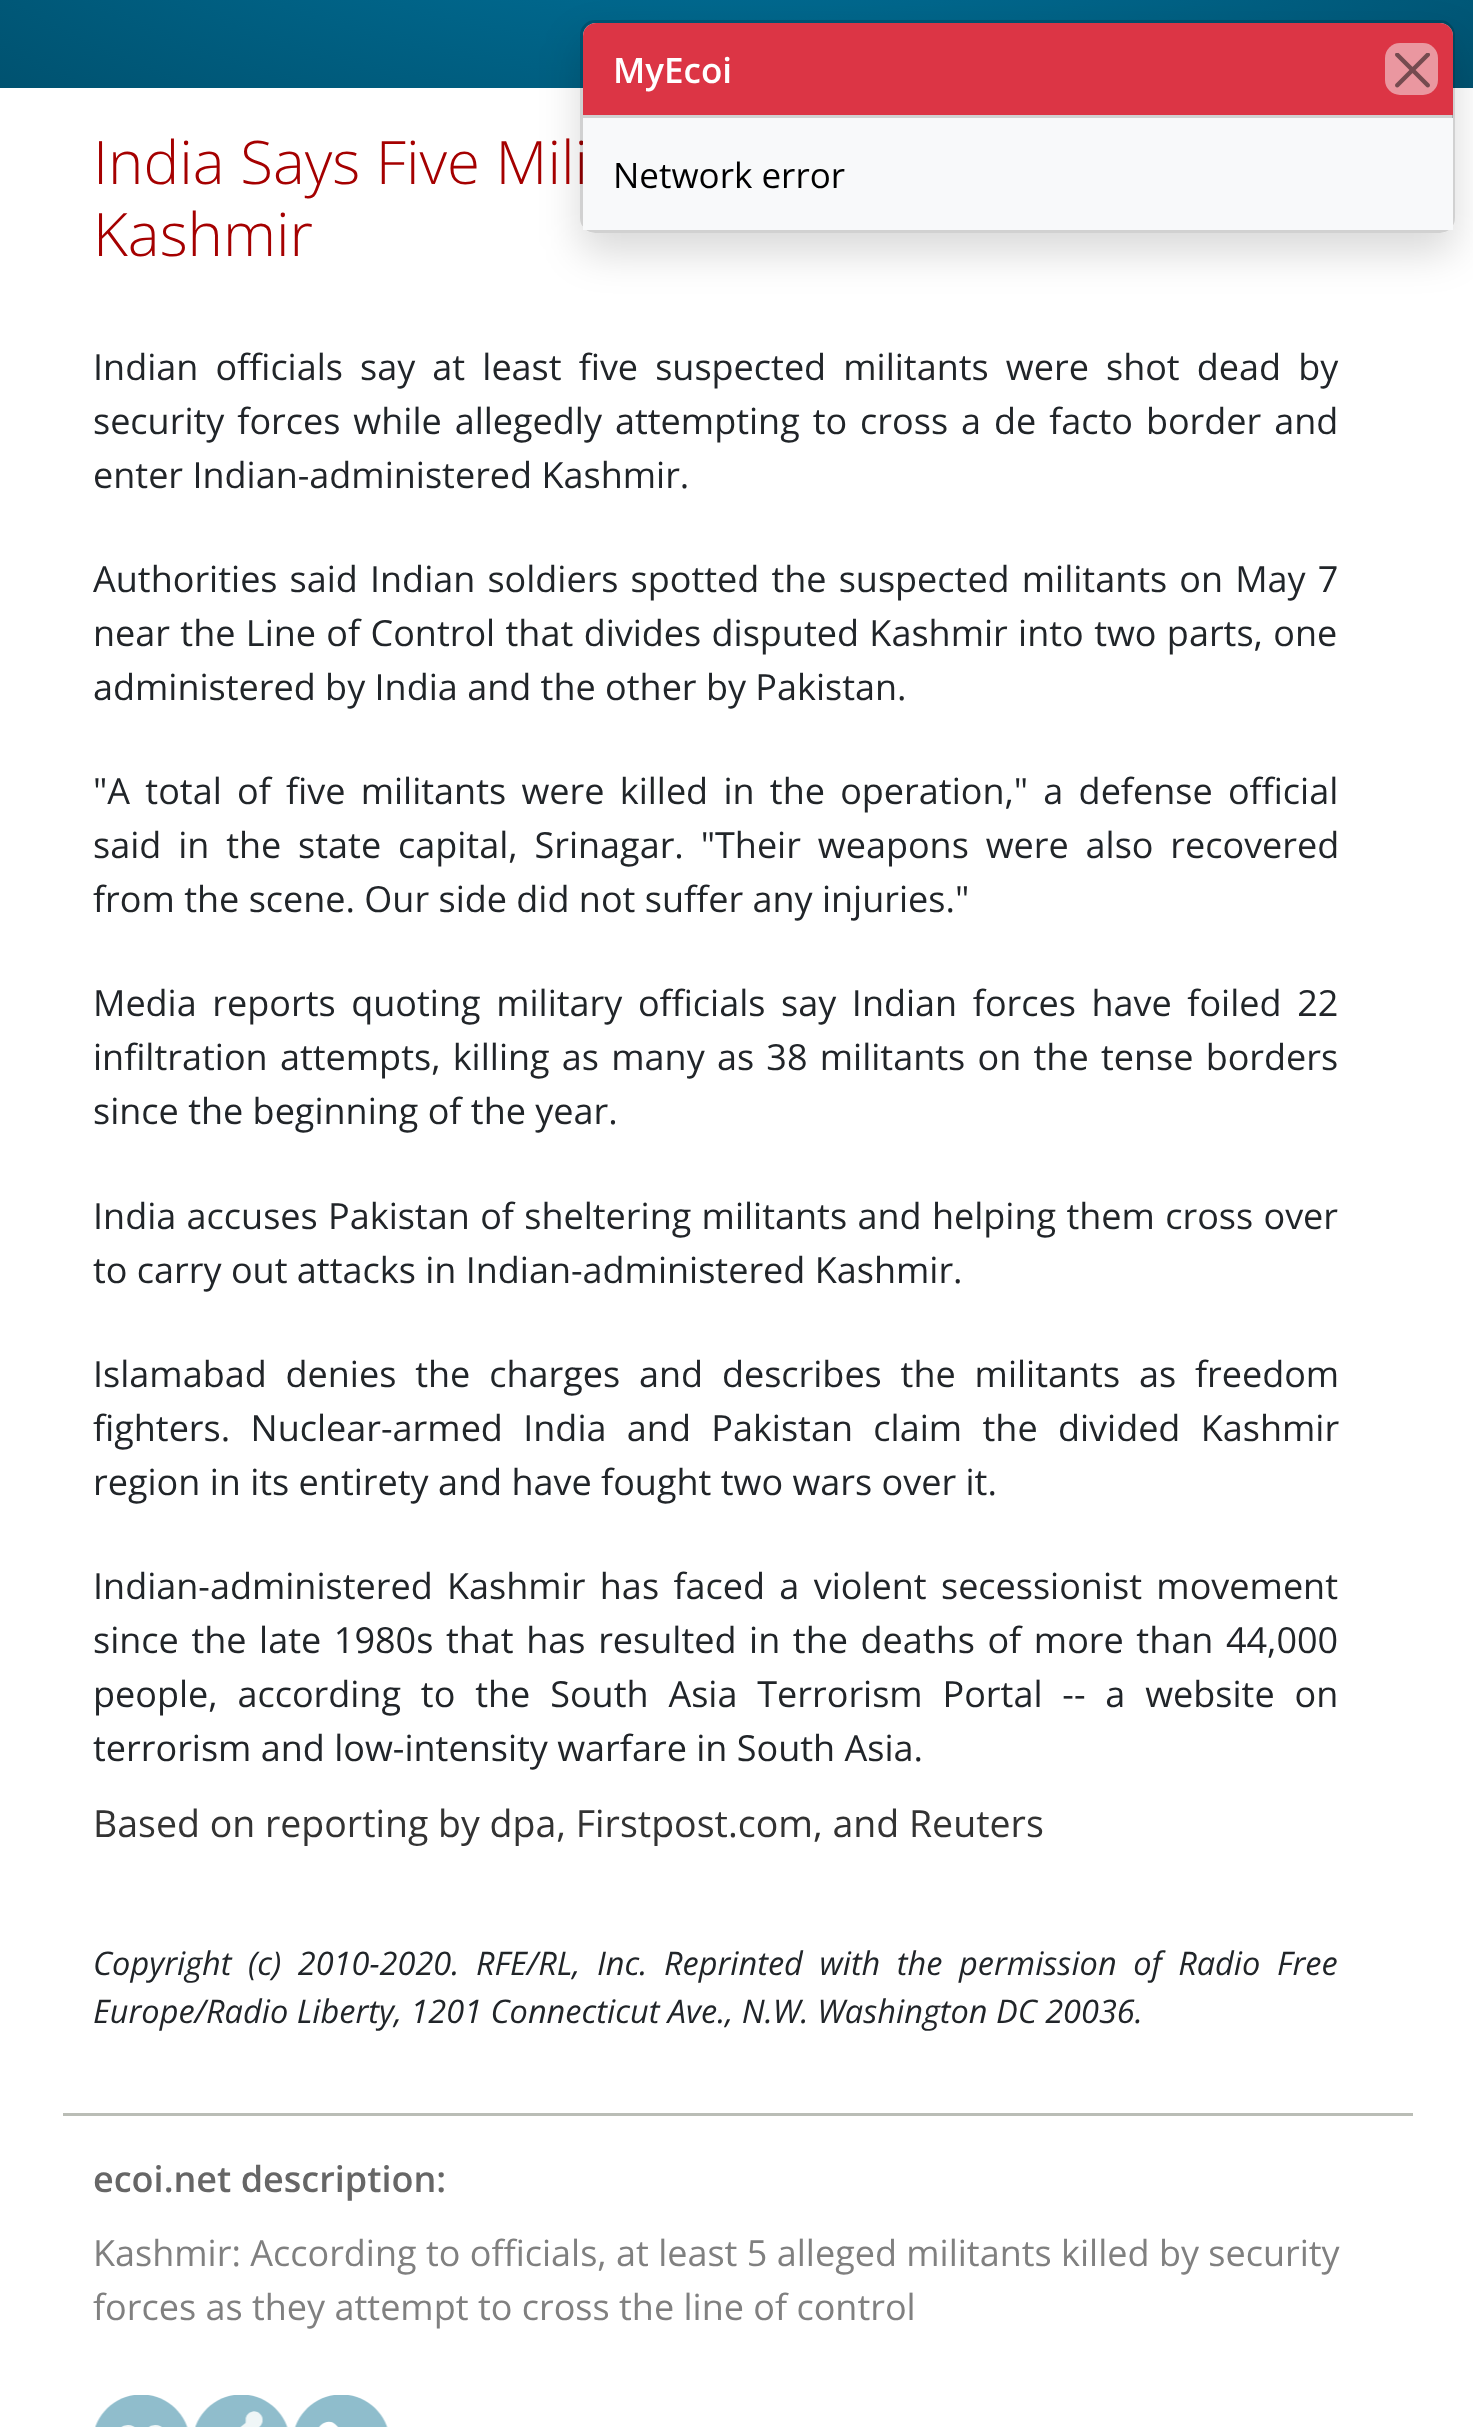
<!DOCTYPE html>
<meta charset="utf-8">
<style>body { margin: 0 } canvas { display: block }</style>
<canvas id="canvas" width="1473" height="2427"></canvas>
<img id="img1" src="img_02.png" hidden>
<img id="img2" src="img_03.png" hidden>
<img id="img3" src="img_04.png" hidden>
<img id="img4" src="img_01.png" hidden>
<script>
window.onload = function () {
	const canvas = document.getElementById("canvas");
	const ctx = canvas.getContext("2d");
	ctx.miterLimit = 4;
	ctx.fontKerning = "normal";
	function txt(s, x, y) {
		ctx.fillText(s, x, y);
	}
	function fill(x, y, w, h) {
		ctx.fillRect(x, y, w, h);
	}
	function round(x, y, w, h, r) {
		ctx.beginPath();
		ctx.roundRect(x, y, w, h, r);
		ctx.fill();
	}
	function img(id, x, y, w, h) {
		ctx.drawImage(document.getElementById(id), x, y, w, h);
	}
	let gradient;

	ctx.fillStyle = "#FFFFFF";
	fill(0, 0, 1473, 2427);
	gradient = ctx.createRadialGradient(738, -544.56, 0, 738, -544.56, 1043);
	gradient.addColorStop(0, "#007FAD");
	gradient.addColorStop(1, "#005270");
	ctx.fillStyle = gradient;
	ctx.beginPath();
	ctx.rect(0, 0, 1473, 88);
	ctx.save();
	ctx.clip();
	ctx.scale(1, 475 / 1043);
	ctx.fillRect(0, 0, 1473, 5330);
	ctx.restore();
	ctx.save();
	ctx.beginPath();
	ctx.moveTo(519, 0);
	ctx.lineTo(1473, 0);
	ctx.lineTo(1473, 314);
	ctx.lineTo(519, 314);
	ctx.closePath();
	ctx.moveTo(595, 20);
	ctx.lineTo(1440, 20);
	ctx.bezierCurveTo(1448.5, 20, 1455, 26.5, 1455, 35);
	ctx.lineTo(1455, 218);
	ctx.bezierCurveTo(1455, 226.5, 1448.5, 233, 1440, 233);
	ctx.lineTo(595, 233);
	ctx.bezierCurveTo(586.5, 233, 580, 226.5, 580, 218);
	ctx.lineTo(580, 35);
	ctx.bezierCurveTo(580, 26.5, 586.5, 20, 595, 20);
	ctx.closePath();
	ctx.clip("evenodd");
	ctx.fillStyle = "rgba(0, 0, 0, 0.15)";
	ctx.filter = "blur(20px)";
	ctx.beginPath();
	ctx.roundRect(580, 40, 875, 213, 15);
	ctx.fill();
	ctx.filter = "none";
	ctx.restore();
	ctx.fillStyle = "rgba(255, 255, 255, 0.85)";
	round(583, 23, 870, 207, 13);
	ctx.fillStyle = "#BABDB6";
	fill(63, 2113, 1350, 3);
	img("img1", 95, 2395, 93, 32);
	img("img2", 195, 2395, 93, 32);
	img("img3", 294, 2395, 94, 32);
	ctx.font = "300 60px Open Sans";
	ctx.fillStyle = "#A50000";
	txt("India Says Five Mili", 93, 184);
	ctx.beginPath();
	ctx.roundRect(581.5, 21.5, 872, 210, 13.5);
	ctx.strokeStyle = "rgba(0, 0, 0, 0.18)";
	ctx.lineWidth = 3;
	ctx.stroke();
	ctx.fillStyle = "#DC3545";
	ctx.beginPath();
	ctx.roundRect(583, 23, 870, 92, [13, 13, 0, 0]);
	ctx.fill();
	ctx.fillStyle = "#EA97A0";
	round(1385, 43, 53, 52, 15);
	img("img4", 1395, 53, 35, 35);
	ctx.fillStyle = "#F8F9FA";
	fill(583, 118, 870, 112);
	ctx.font = "35px Open Sans";
	ctx.fillStyle = "#000000";
	txt("Network error", 613, 188);
	ctx.font = "600 35px Open Sans";
	ctx.fillStyle = "#FFFFFF";
	txt("MyEcoi", 613, 83);
	ctx.fillStyle = "rgba(0, 0, 0, 0.18)";
	fill(583, 115, 870, 3);
	ctx.font = "300 60px Open Sans";
	ctx.fillStyle = "#A50000";
	txt("Kashmir", 93, 256);
	ctx.wordSpacing = "7.75px";
	ctx.font = "36px Open Sans";
	ctx.fillStyle = "#212529";
	txt("Indian officials say at least five suspected militants were shot dead by", 93, 380);
	ctx.wordSpacing = "3.6px";
	txt("security forces while allegedly attempting to cross a de facto border and", 93, 434);
	ctx.wordSpacing = "0px";
	txt("enter Indian-administered Kashmir.", 93, 488);
	ctx.wordSpacing = "2.75px";
	txt("Authorities said Indian soldiers spotted the suspected militants on May 7", 93, 592);
	ctx.wordSpacing = "1px";
	txt("near the Line of Control that divides disputed Kashmir into two parts, one", 93, 646);
	ctx.wordSpacing = "0px";
	txt("administered by India and the other by Pakistan.", 93, 700);
	ctx.wordSpacing = "5.9px";
	txt("\"A total of five militants were killed in the operation,\" a defense official", 93, 804);
	ctx.wordSpacing = "7.5px";
	txt("said in the state capital, Srinagar. \"Their weapons were also recovered", 93, 858);
	ctx.wordSpacing = "0px";
	txt("from the scene. Our side did not suffer any injuries.\"", 93, 912);
	ctx.wordSpacing = "6.25px";
	txt("Media reports quoting military officials say Indian forces have foiled 22", 93, 1016);
	ctx.wordSpacing = "2.9px";
	txt("infiltration attempts, killing as many as 38 militants on the tense borders", 93, 1070);
	ctx.wordSpacing = "0px";
	txt("since the beginning of the year.", 93, 1124);
	ctx.wordSpacing = "1px";
	txt("India accuses Pakistan of sheltering militants and helping them cross over", 93, 1229);
	ctx.wordSpacing = "0px";
	txt("to carry out attacks in Indian-administered Kashmir.", 93, 1283);
	ctx.wordSpacing = "9.5px";
	txt("Islamabad denies the charges and describes the militants as freedom", 93, 1387);
	ctx.wordSpacing = "11px";
	txt("fighters. Nuclear-armed India and Pakistan claim the divided Kashmir", 93, 1441);
	ctx.wordSpacing = "0px";
	txt("region in its entirety and have fought two wars over it.", 93, 1495);
	ctx.wordSpacing = "5px";
	txt("Indian-administered Kashmir has faced a violent secessionist movement", 93, 1599);
	ctx.wordSpacing = "3.25px";
	txt("since the late 1980s that has resulted in the deaths of more than 44,000", 93, 1653);
	ctx.wordSpacing = "10.5px";
	txt("people, according to the South Asia Terrorism Portal -- a website on", 93, 1707);
	ctx.wordSpacing = "0px";
	txt("terrorism and low-intensity warfare in South Asia.", 93, 1761);
	ctx.font = "37.5px Open Sans";
	ctx.fillStyle = "#333333";
	txt("Based on reporting by dpa, Firstpost.com, and Reuters", 93, 1837);
	ctx.wordSpacing = "8.1px";
	ctx.font = "italic 32.5px Open Sans";
	ctx.fillStyle = "#212529";
	txt("Copyright (c) 2010-2020. RFE/RL, Inc. Reprinted with the permission of Radio Free", 93, 1975);
	ctx.wordSpacing = "0px";
	txt("Europe/Radio Liberty, 1201 Connecticut Ave., N.W. Washington DC 20036.", 93, 2023);
	ctx.font = "600 36px Open Sans";
	ctx.fillStyle = "#666666";
	txt("ecoi.net description:", 93, 2192);
	ctx.font = "36px Open Sans";
	ctx.fillStyle = "#808080";
	txt("Kashmir: According to officials, at least 5 alleged militants killed by security", 93, 2266);
	txt("forces as they attempt to cross the line of control", 93, 2320);
};
</script>
